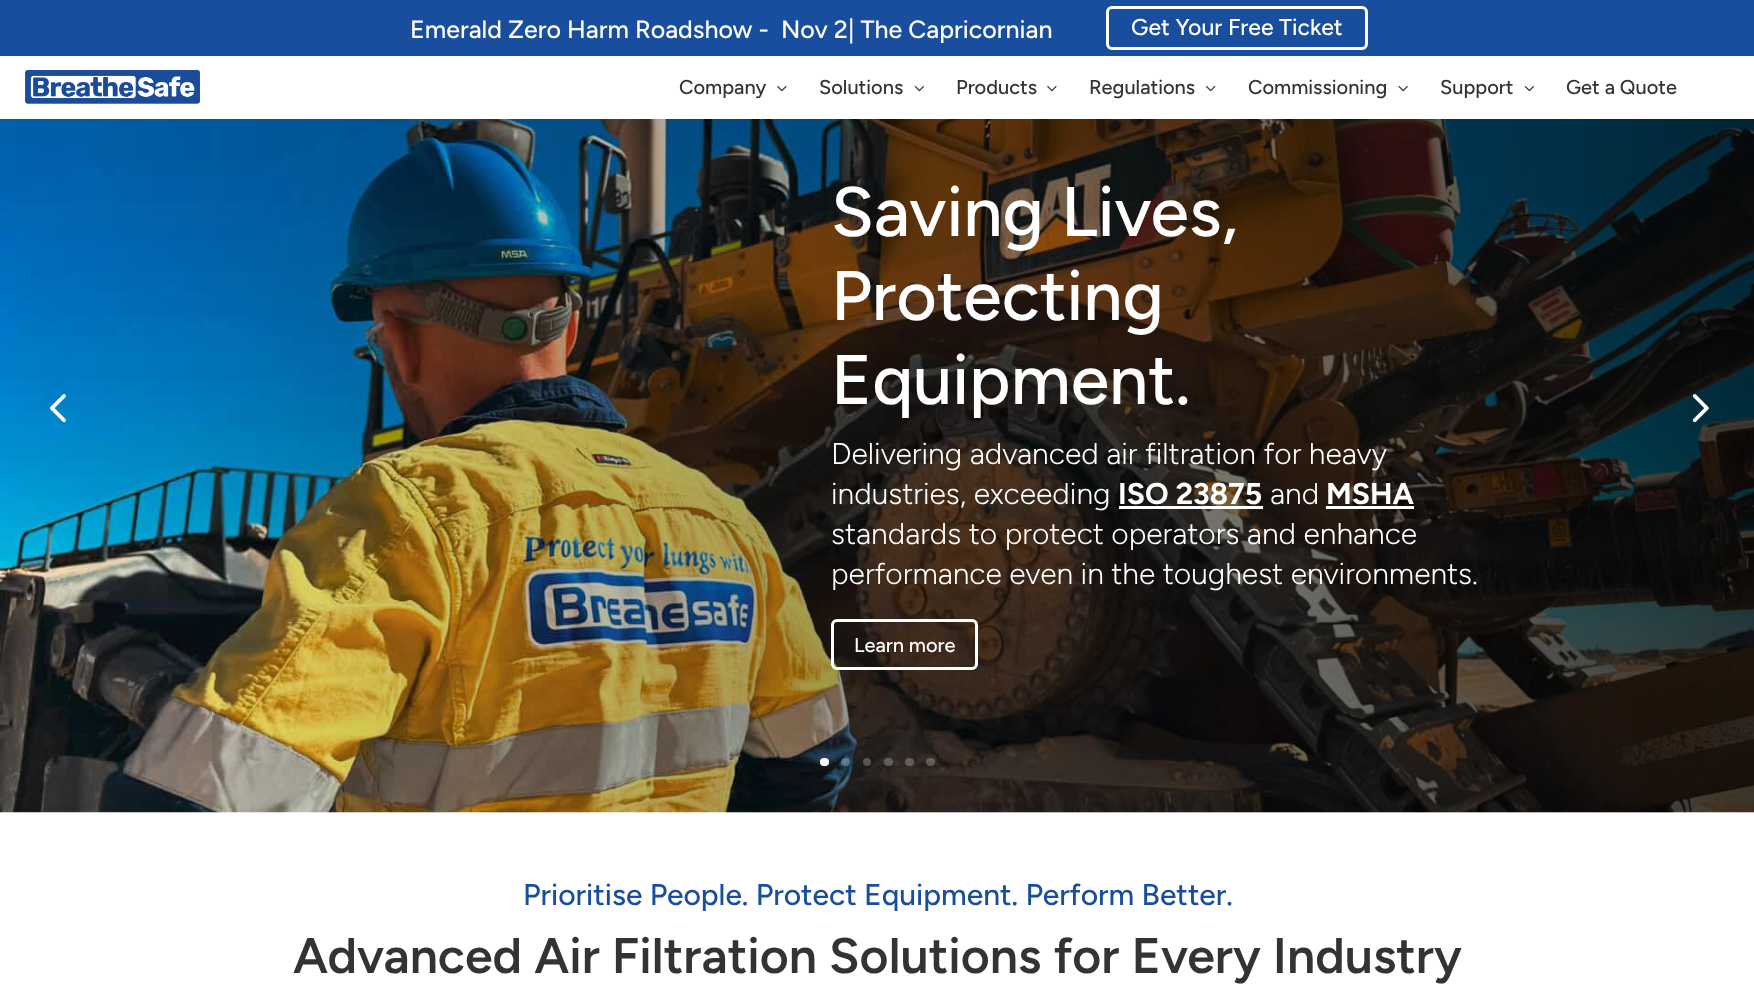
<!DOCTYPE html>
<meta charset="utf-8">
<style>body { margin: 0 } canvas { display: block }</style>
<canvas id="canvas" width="1754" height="985"></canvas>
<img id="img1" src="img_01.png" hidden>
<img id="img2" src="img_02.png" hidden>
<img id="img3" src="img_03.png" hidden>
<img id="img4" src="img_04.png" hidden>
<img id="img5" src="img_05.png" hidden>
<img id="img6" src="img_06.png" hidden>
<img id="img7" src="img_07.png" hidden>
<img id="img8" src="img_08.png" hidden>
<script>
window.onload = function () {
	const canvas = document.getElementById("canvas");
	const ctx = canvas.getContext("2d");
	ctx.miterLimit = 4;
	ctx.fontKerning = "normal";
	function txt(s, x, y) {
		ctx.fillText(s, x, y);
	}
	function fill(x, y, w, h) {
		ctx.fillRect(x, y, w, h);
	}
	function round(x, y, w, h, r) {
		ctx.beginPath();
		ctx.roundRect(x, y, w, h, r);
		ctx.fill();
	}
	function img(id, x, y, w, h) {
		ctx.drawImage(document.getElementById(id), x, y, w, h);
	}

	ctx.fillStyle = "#FFFFFF";
	fill(0, 0, 1754, 985);
	ctx.fillStyle = "#194D9D";
	fill(0, 0, 1754, 56);
	ctx.beginPath();
	ctx.roundRect(1107.5, 7.5, 259, 41, 4.5);
	ctx.strokeStyle = "#FFFFFF";
	ctx.lineWidth = 3;
	ctx.stroke();
	img("img1", 25, 70, 175, 34);
	img("img2", 777, 86, 10, 6);
	img("img3", 914, 86, 10, 6);
	img("img2", 1047, 86, 10, 6);
	img("img4", 1206, 86, 10, 6);
	img("img5", 1398, 86, 10, 6);
	img("img3", 1524, 86, 10, 6);
	img("img6", 0, 119, 1754, 694);
	ctx.fillStyle = "#FFFFFF";
	fill(1119, 506, 144, 3);
	fill(1326, 506, 88, 3);
	ctx.beginPath();
	ctx.roundRect(832.5, 620.5, 144, 48, 4.5);
	ctx.stroke();
	img("img7", 50, 394, 16, 29);
	img("img8", 1692, 394, 17, 29);
	round(820, 758, 9, 8, 4);
	ctx.fillStyle = "rgba(255, 255, 255, 0.25)";
	round(841, 758, 9, 8, 4);
	ctx.beginPath();
	ctx.arc(867, 762, 4, 0, Math.PI * 2);
	ctx.fill();
	round(884, 758, 9, 8, 4);
	round(905, 758, 9, 8, 4);
	round(926, 758, 9, 8, 4);
	ctx.font = "300 25px Figtree";
	ctx.fillStyle = "#FFFFFF";
	txt("Emerald Zero Harm Roadshow -", 410, 38);
	txt("Nov 2| The Capricornian", 781, 38);
	ctx.font = "300 23px Figtree";
	txt("Get Your Free Ticket", 1131, 35);
	ctx.font = "300 20px Figtree";
	ctx.fillStyle = "#333333";
	txt("Company", 679, 94);
	txt("Solutions", 819, 94);
	txt("Products", 956, 94);
	txt("Regulations", 1089, 94);
	txt("Commissioning", 1248, 94);
	txt("Support", 1440, 94);
	txt("Get a Quote", 1566, 94);
	ctx.font = "300 70px Figtree";
	ctx.fillStyle = "#FFFFFF";
	txt("Saving Lives,", 831, 236);
	txt("Protecting", 831, 320);
	txt("Equipment.", 831, 404);
	ctx.font = "300 30px 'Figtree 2'";
	txt("Delivering advanced air filtration for heavy", 831, 464);
	txt("industries, exceeding", 831, 504);
	ctx.font = "300 30px 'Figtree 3'";
	txt("ISO 23875", 1118, 504);
	ctx.font = "300 30px 'Figtree 2'";
	txt("and", 1270, 504);
	ctx.font = "300 30px 'Figtree 3'";
	txt("MSHA", 1326, 504);
	ctx.font = "300 30px 'Figtree 2'";
	txt("standards to protect operators and enhance", 831, 544);
	txt("performance even in the toughest environments.", 831, 584);
	ctx.font = "300 20px Figtree";
	txt("Learn more", 854, 652);
	ctx.font = "300 30px Figtree";
	ctx.fillStyle = "#194D9D";
	txt("Prioritise People. Protect Equipment. Perform Better.", 523, 905);
	ctx.font = "600 50px Figtree";
	ctx.fillStyle = "#333333";
	txt("Advanced Air Filtration Solutions for Every Industry", 293, 973);
};
</script>
